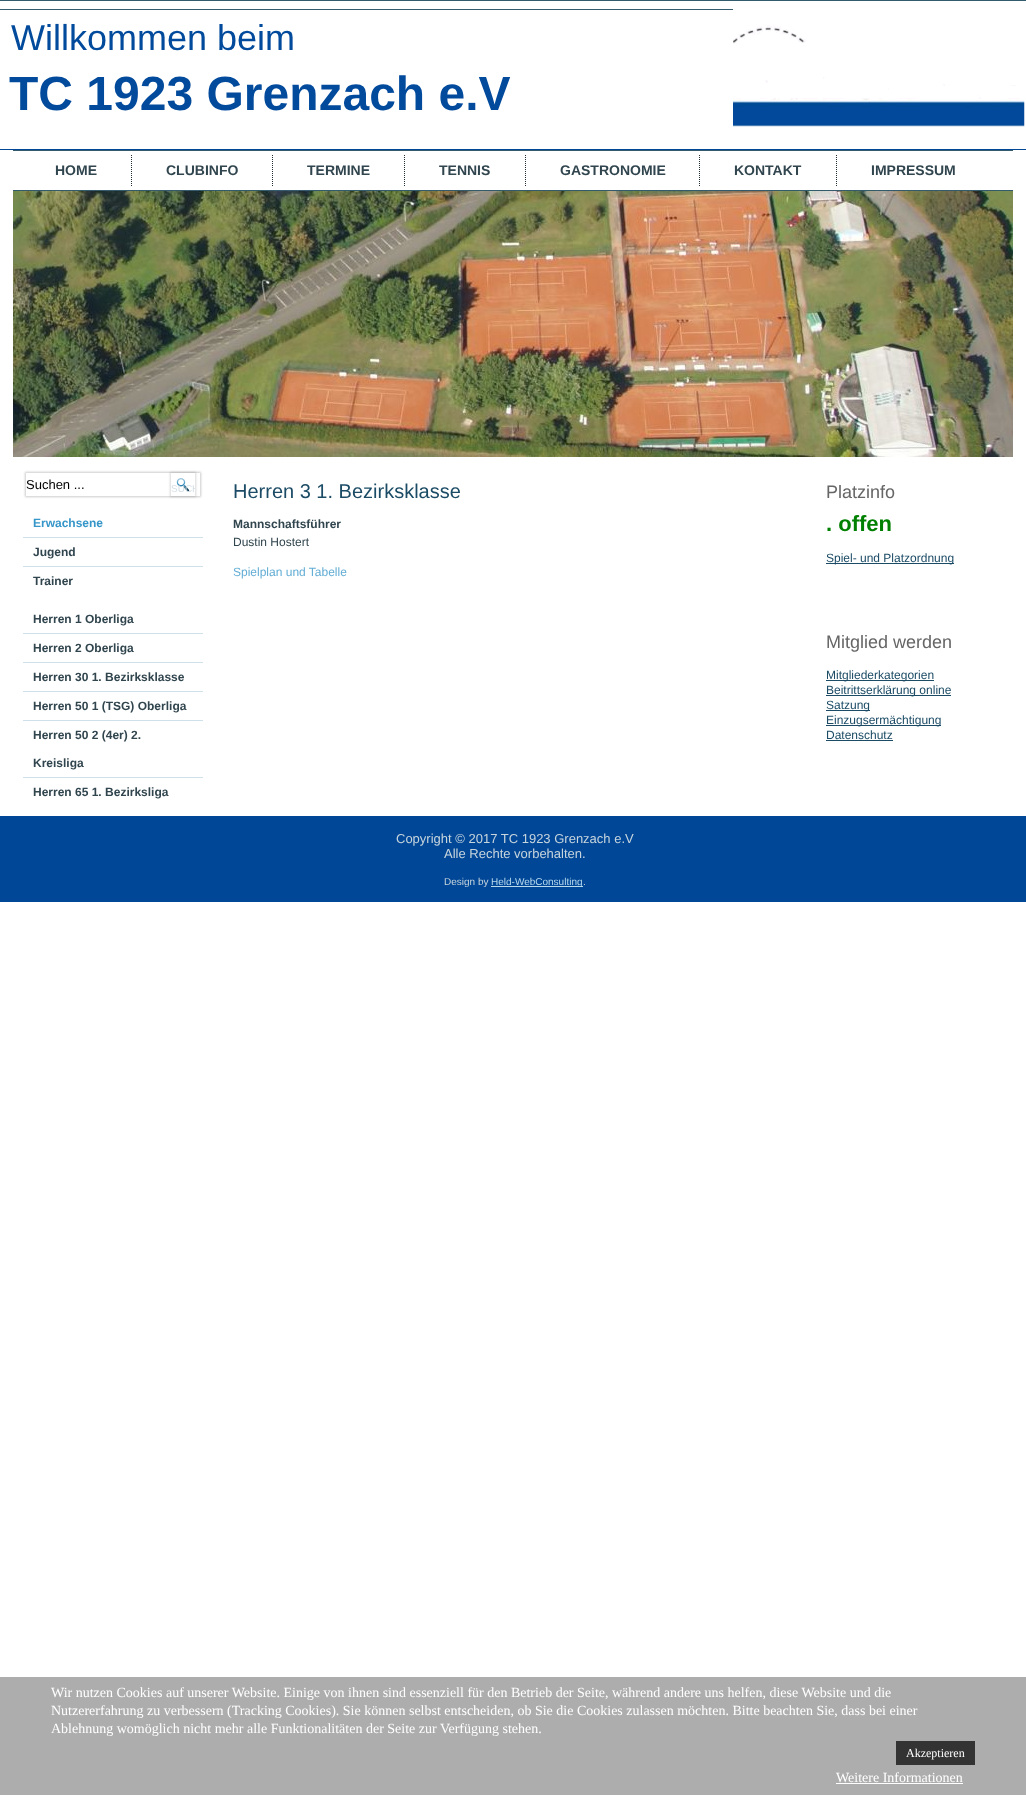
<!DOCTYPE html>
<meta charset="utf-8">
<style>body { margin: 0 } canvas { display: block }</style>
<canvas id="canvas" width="1026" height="1795"></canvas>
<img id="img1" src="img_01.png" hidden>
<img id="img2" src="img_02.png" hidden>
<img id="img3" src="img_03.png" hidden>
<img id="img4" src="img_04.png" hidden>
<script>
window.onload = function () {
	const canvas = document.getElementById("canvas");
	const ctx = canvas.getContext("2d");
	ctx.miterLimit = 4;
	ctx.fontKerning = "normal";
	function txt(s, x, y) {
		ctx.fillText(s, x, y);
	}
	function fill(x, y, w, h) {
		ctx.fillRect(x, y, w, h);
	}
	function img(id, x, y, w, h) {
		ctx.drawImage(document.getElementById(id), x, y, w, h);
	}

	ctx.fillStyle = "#FFFFFF";
	fill(0, 0, 1026, 1795);
	ctx.fillStyle = "#335B6C";
	fill(0, 0, 1026, 1);
	fill(0, 9, 733, 1);
	ctx.fillStyle = "#014798";
	fill(0, 149, 1026, 1);
	img("img1", 733, 9, 293, 118);
	ctx.fillStyle = "#335B6C";
	fill(13, 150, 1000, 1);
	fill(13, 190, 1000, 1);
	img("img2", 131, 155, 1, 31);
	img("img2", 272, 155, 1, 31);
	img("img2", 404, 155, 1, 31);
	img("img2", 525, 155, 1, 31);
	img("img2", 699, 155, 1, 31);
	img("img2", 836, 155, 1, 31);
	img("img3", 13, 191, 1000, 266);
	ctx.save();
	ctx.beginPath();
	ctx.moveTo(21, 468);
	ctx.lineTo(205, 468);
	ctx.lineTo(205, 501);
	ctx.lineTo(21, 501);
	ctx.closePath();
	ctx.moveTo(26, 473);
	ctx.lineTo(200, 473);
	ctx.lineTo(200, 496);
	ctx.lineTo(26, 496);
	ctx.closePath();
	ctx.clip("evenodd");
	ctx.fillStyle = "rgba(0, 0, 0, 0.2)";
	ctx.filter = "blur(1px)";
	ctx.beginPath();
	ctx.rect(25, 472, 176, 25);
	ctx.fill();
	ctx.filter = "none";
	ctx.restore();
	ctx.save();
	ctx.beginPath();
	ctx.moveTo(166, 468);
	ctx.lineTo(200, 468);
	ctx.lineTo(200, 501);
	ctx.lineTo(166, 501);
	ctx.closePath();
	ctx.moveTo(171, 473);
	ctx.lineTo(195, 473);
	ctx.lineTo(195, 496);
	ctx.lineTo(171, 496);
	ctx.closePath();
	ctx.clip("evenodd");
	ctx.fillStyle = "rgba(0, 0, 0, 0.15)";
	ctx.filter = "blur(1px)";
	ctx.beginPath();
	ctx.rect(170, 472, 26, 25);
	ctx.fill();
	ctx.filter = "none";
	ctx.restore();
	img("img4", 176, 478, 14, 14);
	ctx.fillStyle = "#CEE1E8";
	fill(23, 537, 180, 1);
	fill(23, 566, 180, 1);
	fill(23, 633, 180, 1);
	fill(23, 662, 180, 1);
	fill(23, 691, 180, 1);
	fill(23, 720, 180, 1);
	fill(23, 777, 180, 1);
	ctx.fillStyle = "#1B4B65";
	fill(826, 563, 128, 1);
	fill(826, 680, 108, 1);
	fill(826, 695, 125, 1);
	fill(826, 710, 44, 1);
	fill(826, 725, 115, 1);
	fill(826, 740, 67, 1);
	ctx.fillStyle = "#014798";
	fill(0, 816, 1026, 86);
	ctx.fillStyle = "#B6D9EC";
	fill(491, 886, 92, 1);
	ctx.fillStyle = "#ADADAD";
	fill(0, 1677, 1026, 118);
	ctx.fillStyle = "#333333";
	fill(896, 1741, 79, 24);
	ctx.fillStyle = "#FFFFFF";
	fill(836, 1783, 127, 1);
	ctx.font = "36px Liberation Sans";
	ctx.fillStyle = "#024A9C";
	txt("Willkommen beim", 11, 50);
	ctx.font = "bold 48px Liberation Sans";
	txt("TC 1923 Grenzach e.V", 9, 110);
	ctx.font = "bold 14px Liberation Sans";
	ctx.fillStyle = "#31454E";
	txt("HOME", 55, 175);
	txt("CLUBINFO", 166, 175);
	txt("TERMINE", 307, 175);
	txt("TENNIS", 439, 175);
	txt("GASTRONOMIE", 560, 175);
	txt("KONTAKT", 734, 175);
	txt("IMPRESSUM", 871, 175);
	ctx.font = "13px Liberation Sans";
	ctx.fillStyle = "#000000";
	txt("Suchen ...", 26, 489);
	ctx.save();
	ctx.beginPath();
	ctx.rect(171, 473, 24, 23);
	ctx.clip();
	ctx.font = "10px Liberation Sans";
	ctx.fillStyle = "#D3DEE4";
	txt("SUCH", 171, 492);
	ctx.restore();
	ctx.font = "bold 12px Liberation Sans";
	ctx.fillStyle = "#3696C9";
	txt("Erwachsene", 33, 527);
	ctx.fillStyle = "#31454E";
	txt("Jugend", 33, 556);
	txt("Trainer", 33, 585);
	txt("Herren 1 Oberliga", 33, 623);
	txt("Herren 2 Oberliga", 33, 652);
	txt("Herren 30 1. Bezirksklasse", 33, 681);
	txt("Herren 50 1 (TSG) Oberliga", 33, 710);
	txt("Herren 50 2 (4er) 2.", 33, 739);
	txt("Kreisliga", 33, 767);
	txt("Herren 65 1. Bezirksliga", 33, 796);
	ctx.font = "20px Liberation Sans";
	ctx.fillStyle = "#1B4B65";
	txt("Herren 3 1. Bezirksklasse", 233, 498);
	ctx.font = "bold 12px Liberation Sans";
	ctx.fillStyle = "#31454E";
	txt("Mannschaftsführer", 233, 528);
	ctx.font = "12px Liberation Sans";
	txt("Dustin Hostert", 233, 546);
	ctx.fillStyle = "#62ADD5";
	txt("Spielplan und Tabelle", 233, 576);
	ctx.font = "18px Liberation Sans";
	ctx.fillStyle = "#666666";
	txt("Platzinfo", 826, 498);
	ctx.font = "bold 22px Liberation Sans";
	ctx.fillStyle = "#008000";
	txt(". offen", 826, 531);
	ctx.font = "12px Liberation Sans";
	ctx.fillStyle = "#1B4B65";
	txt("Spiel- und Platzordnung", 826, 562);
	ctx.font = "18px Liberation Sans";
	ctx.fillStyle = "#666666";
	txt("Mitglied werden", 826, 648);
	ctx.font = "12px Liberation Sans";
	ctx.fillStyle = "#1B4B65";
	txt("Mitgliederkategorien", 826, 679);
	txt("Beitrittserklärung online", 826, 694);
	txt("Satzung", 826, 709);
	txt("Einzugsermächtigung", 826, 724);
	txt("Datenschutz", 826, 739);
	ctx.font = "13px Liberation Sans";
	ctx.fillStyle = "#C7D5DC";
	txt("Copyright © 2017 TC 1923 Grenzach e.V", 396, 843);
	txt("Alle Rechte vorbehalten.", 444, 858);
	ctx.font = "10px Liberation Sans";
	txt("Design by", 444, 885);
	ctx.fillStyle = "#B6D9EC";
	txt("Held-WebConsulting", 491, 885);
	ctx.fillStyle = "#C7D5DC";
	txt(".", 583, 885);
	ctx.font = "14px Liberation Serif";
	ctx.fillStyle = "#FFFFFF";
	txt("Wir nutzen Cookies auf unserer Website. Einige von ihnen sind essenziell für den Betrieb der Seite, während andere uns helfen, diese Website und die", 51, 1697);
	txt("Nutzererfahrung zu verbessern (Tracking Cookies). Sie können selbst entscheiden, ob Sie die Cookies zulassen möchten. Bitte beachten Sie, dass bei einer", 51, 1715);
	txt("Ablehnung womöglich nicht mehr alle Funktionalitäten der Seite zur Verfügung stehen.", 51, 1733);
	ctx.font = "12px Liberation Serif";
	txt("Akzeptieren", 906, 1757);
	ctx.font = "14px Liberation Serif";
	txt("Weitere Informationen", 836, 1782);
};
</script>
